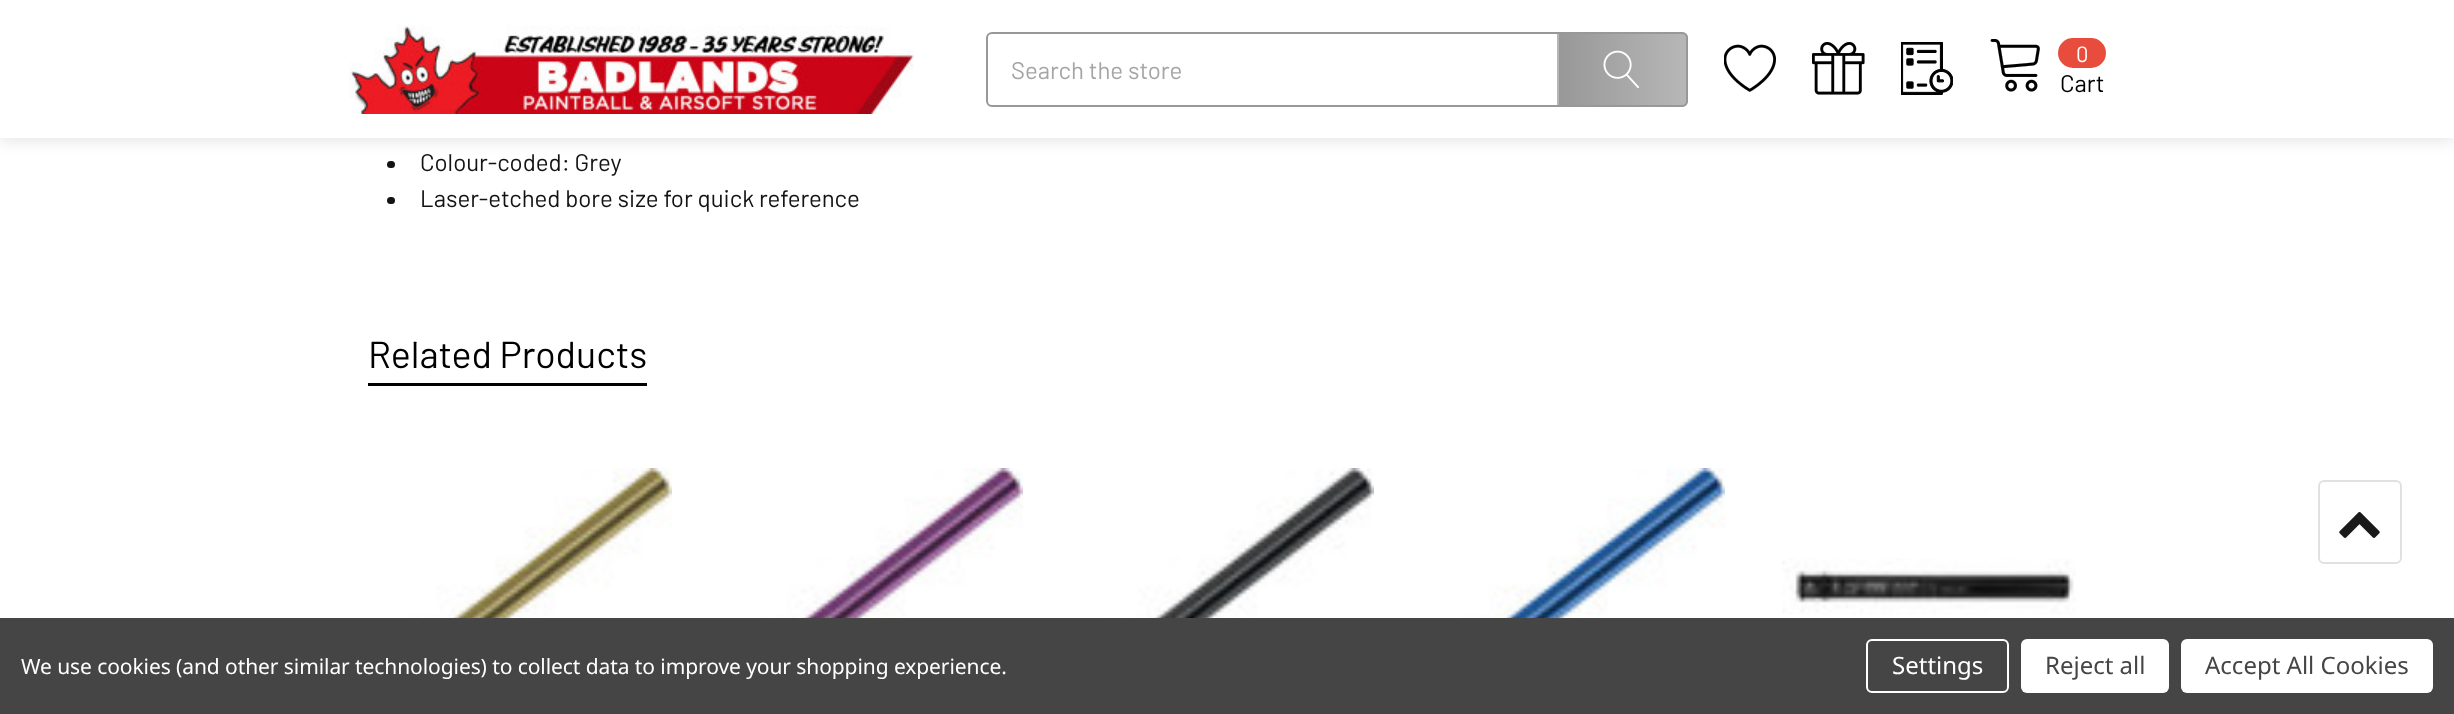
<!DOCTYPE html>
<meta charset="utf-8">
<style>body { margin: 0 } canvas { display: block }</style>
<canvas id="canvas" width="2454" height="714"></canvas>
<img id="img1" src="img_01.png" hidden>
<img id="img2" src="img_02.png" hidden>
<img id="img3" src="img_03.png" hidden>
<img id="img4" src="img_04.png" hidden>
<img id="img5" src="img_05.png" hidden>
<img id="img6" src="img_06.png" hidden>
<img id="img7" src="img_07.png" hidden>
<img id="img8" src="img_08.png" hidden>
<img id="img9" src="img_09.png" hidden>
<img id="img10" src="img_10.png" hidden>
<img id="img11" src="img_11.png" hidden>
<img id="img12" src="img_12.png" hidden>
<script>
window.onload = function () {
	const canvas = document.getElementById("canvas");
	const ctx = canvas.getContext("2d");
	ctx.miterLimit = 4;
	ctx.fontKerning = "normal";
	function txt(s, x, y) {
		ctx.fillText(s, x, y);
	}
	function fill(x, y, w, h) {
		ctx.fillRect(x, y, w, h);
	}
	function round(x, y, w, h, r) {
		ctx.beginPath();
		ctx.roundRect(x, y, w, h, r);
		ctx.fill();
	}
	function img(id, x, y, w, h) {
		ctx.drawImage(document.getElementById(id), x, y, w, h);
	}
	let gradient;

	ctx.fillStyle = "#FFFFFF";
	fill(0, 0, 2454, 714);
	ctx.fillStyle = "#131313";
	round(387, 161, 8, 7, 3.5);
	ctx.fillStyle = "rgba(0, 0, 0, 0.1)";
	ctx.filter = "blur(7.5px)";
	ctx.beginPath();
	ctx.rect(0, 3, 2454, 138);
	ctx.fill();
	ctx.filter = "none";
	ctx.fillStyle = "#FFFFFF";
	fill(0, 0, 2454, 138);
	img("img1", 349, 25, 565, 89);
	ctx.beginPath();
	ctx.roundRect(987, 33, 700, 73, 5);
	ctx.strokeStyle = "#989898";
	ctx.lineWidth = 2;
	ctx.stroke();
	gradient = ctx.createLinearGradient(1431, 69, 1559, 69);
	gradient.addColorStop(0, "#989898");
	gradient.addColorStop(1, "rgba(152, 152, 152, 0.7)");
	ctx.fillStyle = gradient;
	fill(1557, 32, 2, 75);
	ctx.save();
	ctx.beginPath();
	ctx.roundRect(1557, 32, 131, 75, [0, 6, 6, 0]);
	ctx.clip();
	gradient = ctx.createLinearGradient(1559, 69, 1686, 69);
	gradient.addColorStop(0, "#989898");
	gradient.addColorStop(1, "rgba(152, 152, 152, 0.7)");
	ctx.fillStyle = gradient;
	fill(1559, 32, 127, 75);
	gradient = ctx.createLinearGradient(1686, 69, 1814, 69);
	gradient.addColorStop(0, "#989898");
	gradient.addColorStop(1, "rgba(152, 152, 152, 0.7)");
	ctx.fillStyle = gradient;
	fill(1686, 32, 2, 75);
	ctx.restore();
	img("img2", 1603, 50, 36, 39);
	img("img3", 1724, 44, 52, 48);
	img("img4", 1812, 42, 53, 53);
	img("img5", 1901, 42, 52, 53);
	img("img6", 1990, 39, 50, 53);
	ctx.fillStyle = "#E74C3C";
	round(2058, 38, 48, 30, 15);
	ctx.fillStyle = "#131313";
	round(387, 197, 8, 7, 3.5);
	ctx.fillStyle = "#000000";
	fill(368, 383, 279, 3);
	img("img7", 378, 468, 294, 150);
	img("img8", 729, 468, 294, 150);
	img("img9", 1080, 468, 294, 150);
	img("img10", 1431, 468, 294, 150);
	img("img11", 1782, 558, 294, 57);
	ctx.beginPath();
	ctx.roundRect(2319, 481, 82, 82, 5);
	ctx.strokeStyle = "#E0E1E4";
	ctx.stroke();
	img("img12", 2339, 512, 41, 26);
	ctx.fillStyle = "#454545";
	fill(0, 618, 2454, 96);
	ctx.beginPath();
	ctx.roundRect(1867, 640, 141, 52, 5);
	ctx.strokeStyle = "#FFFFFF";
	ctx.stroke();
	ctx.fillStyle = "#FFFFFF";
	round(2021, 639, 148, 54, 6);
	round(2181, 639, 252, 54, 6);
	ctx.font = "24px Barlow";
	ctx.fillStyle = "#A5A5A5";
	txt("Search the store", 1011, 79);
	ctx.font = "22px Barlow";
	ctx.fillStyle = "#FFFFFF";
	txt("0", 2076, 62);
	ctx.font = "24px Barlow";
	ctx.fillStyle = "#000000";
	txt("Cart", 2060, 92);
	ctx.fillStyle = "#131313";
	txt("Colour-coded: Grey", 420, 171);
	txt("Laser-etched bore size for quick reference", 420, 207);
	ctx.font = "37.5px Barlow";
	ctx.fillStyle = "#000000";
	txt("Related Products", 368, 368);
	ctx.letterSpacing = "-0.08px";
	ctx.font = "21px Noto Sans";
	ctx.fillStyle = "#FFFFFF";
	txt("We use cookies (and other similar technologies) to collect data to improve your shopping experience.", 21, 674);
	ctx.letterSpacing = "0px";
	ctx.font = "24px Noto Sans";
	txt("Settings", 1892, 674);
	ctx.fillStyle = "#454545";
	txt("Reject all", 2045, 674);
	txt("Accept All Cookies", 2205, 674);
};
</script>
